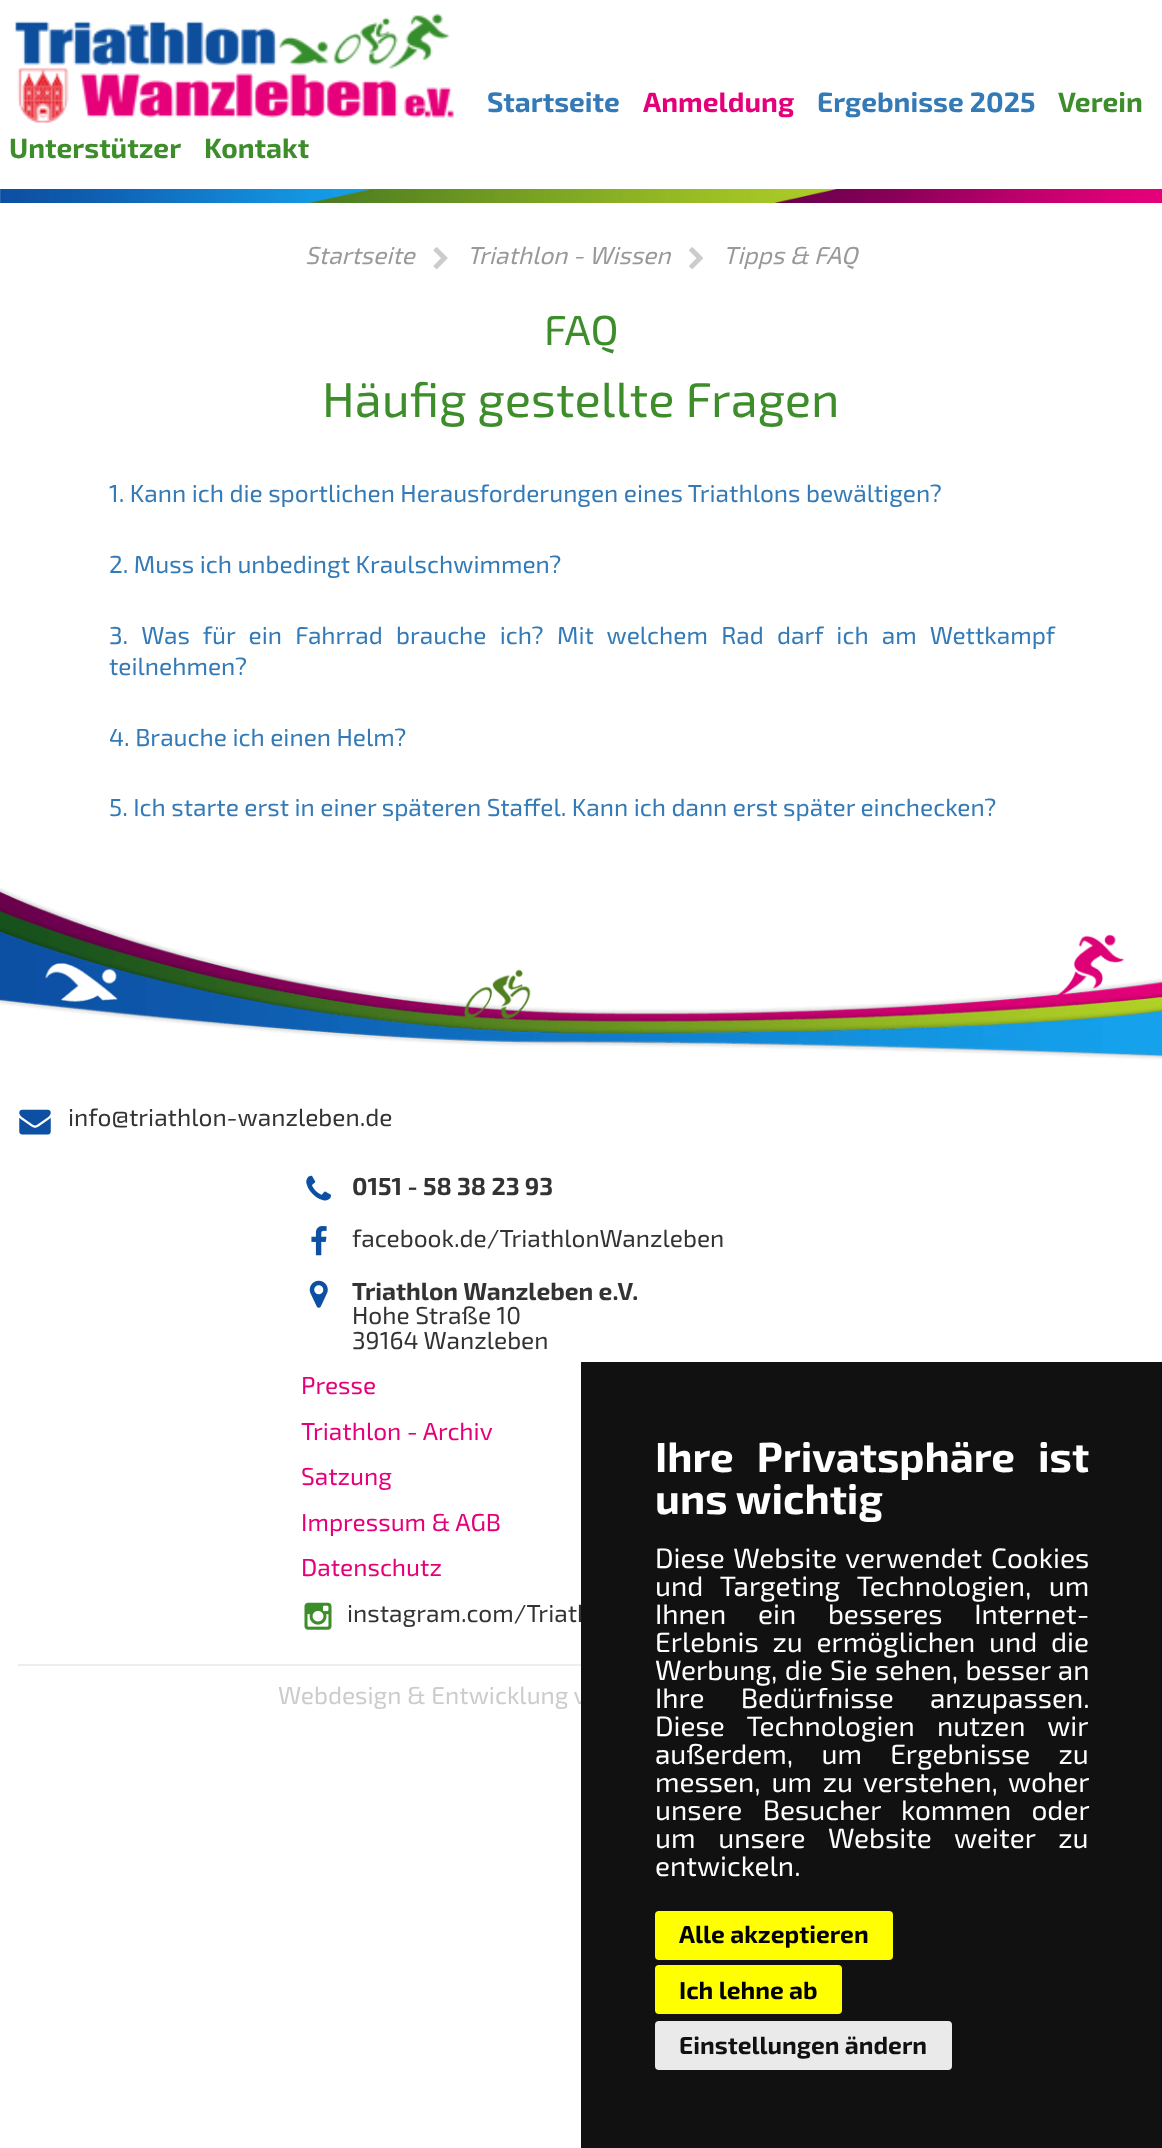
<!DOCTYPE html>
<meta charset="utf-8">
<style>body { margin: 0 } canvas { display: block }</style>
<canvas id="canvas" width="1162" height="2148"></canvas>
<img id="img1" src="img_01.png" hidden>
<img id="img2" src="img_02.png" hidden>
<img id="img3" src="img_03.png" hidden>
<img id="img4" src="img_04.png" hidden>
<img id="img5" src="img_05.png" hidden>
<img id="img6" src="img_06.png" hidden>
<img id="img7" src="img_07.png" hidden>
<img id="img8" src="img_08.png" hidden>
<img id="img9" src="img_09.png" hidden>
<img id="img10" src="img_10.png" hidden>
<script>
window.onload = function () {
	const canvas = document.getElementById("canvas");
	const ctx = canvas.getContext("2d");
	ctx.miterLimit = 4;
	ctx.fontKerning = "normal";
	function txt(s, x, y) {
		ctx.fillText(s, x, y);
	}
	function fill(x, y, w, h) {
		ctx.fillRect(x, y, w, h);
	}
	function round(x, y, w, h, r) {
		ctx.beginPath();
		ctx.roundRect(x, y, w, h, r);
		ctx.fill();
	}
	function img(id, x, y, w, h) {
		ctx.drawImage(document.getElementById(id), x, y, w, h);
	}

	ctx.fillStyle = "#FFFFFF";
	fill(0, 0, 1162, 2148);
	img("img1", 15, 13, 439, 110);
	img("img2", 0, 189, 1162, 14);
	img("img3", 433, 247, 15, 22);
	img("img4", 689, 247, 14, 22);
	img("img5", 0, 888, 1162, 172);
	img("img6", 19, 1109, 32, 26);
	img("img7", 306, 1175, 25, 26);
	img("img8", 311, 1226, 16, 30);
	img("img9", 309, 1280, 19, 28);
	img("img10", 304, 1602, 28, 28);
	ctx.fillStyle = "#EEEEEE";
	fill(18, 1664, 563, 2);
	ctx.font = "bold 28px 'Exo 2'";
	ctx.fillStyle = "#337AB7";
	txt("Startseite", 487, 112);
	ctx.fillStyle = "#E5007A";
	txt("Anmeldung", 643, 112);
	ctx.fillStyle = "#337AB7";
	txt("Ergebnisse 2025", 817, 112);
	ctx.fillStyle = "#3D8D2B";
	txt("Verein", 1058, 112);
	txt("Unterstützer", 9, 158);
	txt("Kontakt", 204, 158);
	ctx.font = "italic 24.5px 'Exo 2'";
	ctx.fillStyle = "#999999";
	txt("Startseite", 305, 264);
	txt("Triathlon - Wissen", 467, 264);
	txt("Tipps & FAQ", 723, 264);
	ctx.font = "42px 'Exo 2'";
	ctx.fillStyle = "#3D8D2B";
	txt("FAQ", 544, 345);
	ctx.font = "49px 'Exo 2'";
	txt("Häufig gestellte Fragen", 322, 417);
	ctx.font = "24.5px 'Exo 2'";
	ctx.fillStyle = "#337AB7";
	txt("1. Kann ich die sportlichen Herausforderungen eines Triathlons bewältigen?", 109, 502);
	txt("2. Muss ich unbedingt Kraulschwimmen?", 109, 573);
	ctx.wordSpacing = "7.75px";
	txt("3. Was für ein Fahrrad brauche ich? Mit welchem Rad darf ich am Wettkampf", 109, 644);
	ctx.wordSpacing = "0px";
	txt("teilnehmen?", 109, 675);
	txt("4. Brauche ich einen Helm?", 109, 746);
	txt("5. Ich starte erst in einer späteren Staffel. Kann ich dann erst später einchecken?", 109, 816);
	ctx.fillStyle = "#333333";
	txt("info@triathlon-wanzleben.de", 68, 1126);
	ctx.font = "bold 24.5px 'Exo 2'";
	txt("0151 - 58 38 23 93", 352, 1195);
	ctx.font = "24.5px 'Exo 2'";
	txt("facebook.de/TriathlonWanzleben", 352, 1247);
	ctx.font = "bold 24.5px 'Exo 2'";
	txt("Triathlon Wanzleben e.V.", 352, 1300);
	ctx.font = "24.5px 'Exo 2'";
	txt("Hohe Straße 10", 352, 1324);
	txt("39164 Wanzleben", 352, 1349);
	ctx.fillStyle = "#E5007A";
	txt("Presse", 301, 1394);
	txt("Triathlon - Archiv", 301, 1440);
	txt("Satzung", 301, 1485);
	txt("Impressum & AGB", 301, 1531);
	txt("Datenschutz", 301, 1576);
	ctx.fillStyle = "#333333";
	txt("instagram.com/Triath", 347, 1622);
	ctx.fillStyle = "#CCCCCC";
	txt("Webdesign & Entwicklung v", 278, 1704);
	ctx.fillStyle = "#111111";
	fill(581, 1362, 581, 786);
	ctx.wordSpacing = "14px";
	ctx.font = "bold 42px 'Exo 2'";
	ctx.fillStyle = "#FFFFFF";
	txt("Ihre Privatsphäre ist", 655, 1472);
	ctx.wordSpacing = "0px";
	txt("uns wichtig", 655, 1514);
	ctx.wordSpacing = "2.5px";
	ctx.font = "28px 'Exo 2'";
	txt("Diese Website verwendet Cookies", 655, 1568);
	ctx.wordSpacing = "11px";
	txt("und Targeting Technologien, um", 655, 1596);
	ctx.wordSpacing = "25.5px";
	txt("Ihnen ein besseres Internet-", 655, 1624);
	ctx.wordSpacing = "7.5px";
	txt("Erlebnis zu ermöglichen und die", 655, 1652);
	ctx.wordSpacing = "1px";
	txt("Werbung, die Sie sehen, besser an", 655, 1680);
	ctx.wordSpacing = "30px";
	txt("Ihre Bedürfnisse anzupassen.", 655, 1708);
	ctx.wordSpacing = "16px";
	txt("Diese Technologien nutzen wir", 655, 1736);
	ctx.wordSpacing = "22px";
	txt("außerdem, um Ergebnisse zu", 655, 1764);
	ctx.wordSpacing = "4.5px";
	txt("messen, um zu verstehen, woher", 655, 1792);
	ctx.wordSpacing = "14px";
	txt("unsere Besucher kommen oder", 655, 1820);
	ctx.wordSpacing = "16.5px";
	txt("um unsere Website weiter zu", 655, 1848);
	ctx.wordSpacing = "0px";
	txt("entwickeln.", 655, 1876);
	ctx.fillStyle = "#FFFF00";
	round(655, 1911, 238, 49, 4);
	ctx.font = "bold 24.5px 'Exo 2'";
	ctx.fillStyle = "#000000";
	txt("Alle akzeptieren", 679, 1943);
	ctx.fillStyle = "#FFFF00";
	round(655, 1965, 187, 49, 4);
	ctx.fillStyle = "#000000";
	txt("Ich lehne ab", 679, 1999);
	ctx.fillStyle = "#EAEAEA";
	round(655, 2021, 297, 49, 4);
	ctx.fillStyle = "#111111";
	txt("Einstellungen ändern", 679, 2054);
};
</script>
